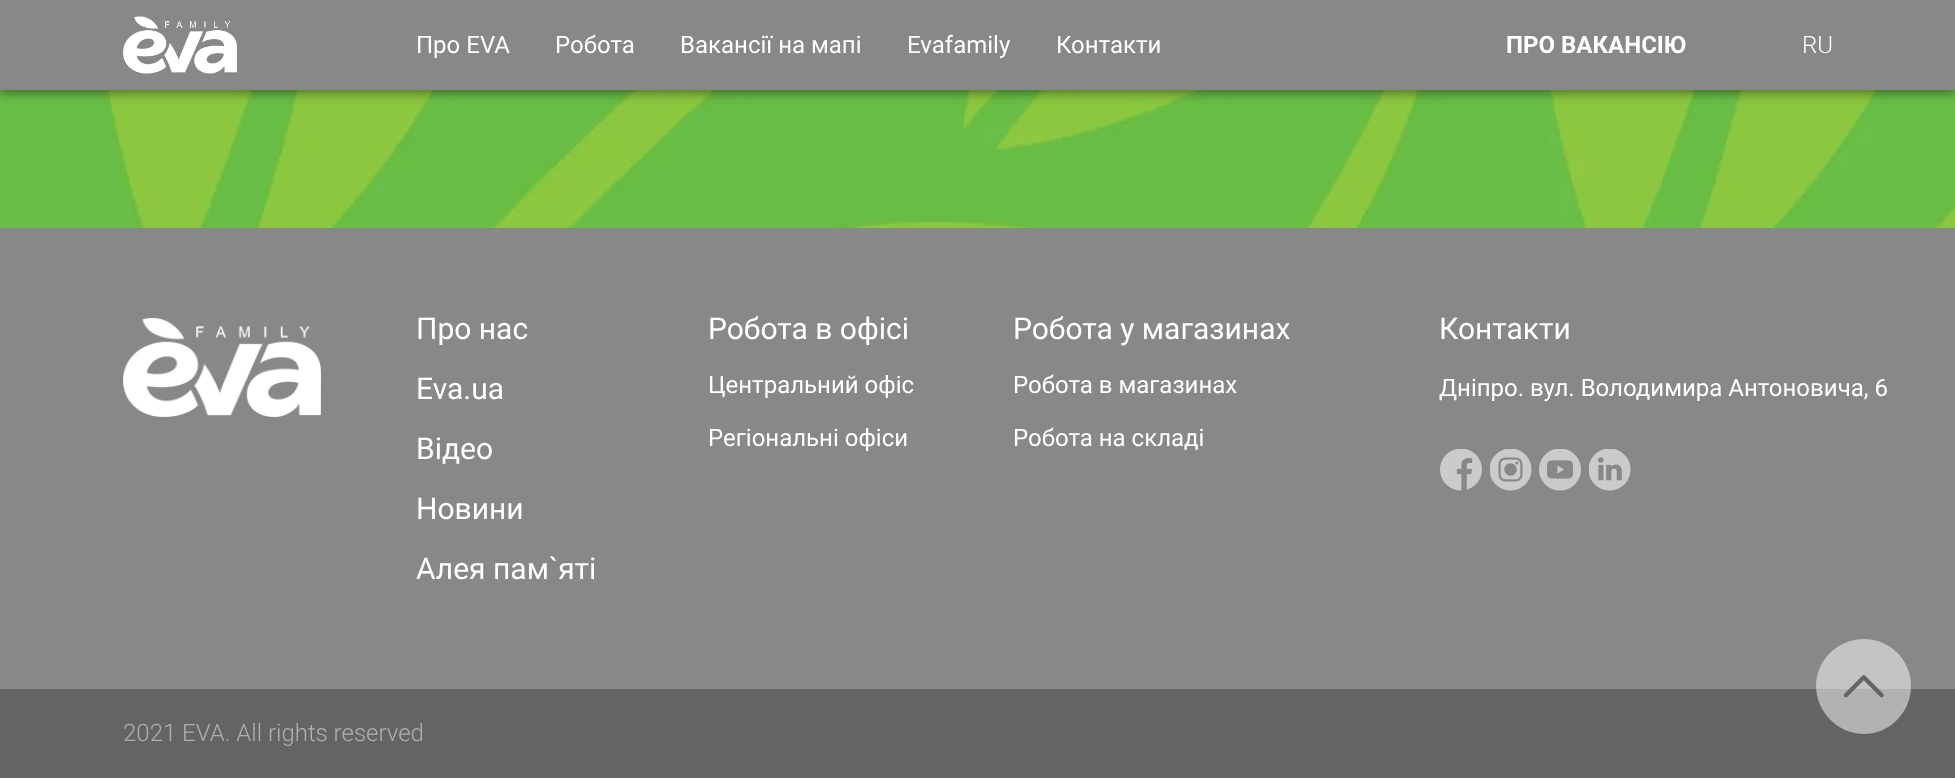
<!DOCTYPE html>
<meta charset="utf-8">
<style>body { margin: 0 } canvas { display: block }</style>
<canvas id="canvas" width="1955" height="778"></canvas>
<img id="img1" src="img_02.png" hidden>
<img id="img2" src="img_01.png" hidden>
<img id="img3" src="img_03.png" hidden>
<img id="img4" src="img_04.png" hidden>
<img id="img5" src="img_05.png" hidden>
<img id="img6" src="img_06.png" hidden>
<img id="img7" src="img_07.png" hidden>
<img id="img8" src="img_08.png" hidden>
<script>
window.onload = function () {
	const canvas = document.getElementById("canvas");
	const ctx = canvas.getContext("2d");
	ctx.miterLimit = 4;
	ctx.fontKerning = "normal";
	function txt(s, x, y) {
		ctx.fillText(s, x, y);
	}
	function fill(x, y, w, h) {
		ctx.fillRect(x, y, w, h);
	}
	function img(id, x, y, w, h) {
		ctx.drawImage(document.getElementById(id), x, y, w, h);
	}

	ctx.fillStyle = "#FFFFFF";
	fill(0, 0, 1955, 778);
	img("img1", 0, 90, 1955, 138);
	ctx.fillStyle = "rgba(0, 0, 0, 0.5)";
	ctx.filter = "blur(6px)";
	ctx.beginPath();
	ctx.rect(-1, -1, 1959, 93);
	ctx.fill();
	ctx.filter = "none";
	ctx.fillStyle = "#878888";
	fill(0, 0, 1955, 90);
	img("img2", 123, 16, 114, 58);
	fill(0, 228, 1955, 461);
	img("img3", 123, 318, 198, 99);
	img("img4", 1440, 449, 42, 42);
	img("img5", 1490, 449, 42, 42);
	img("img6", 1539, 449, 42, 42);
	img("img7", 1589, 449, 42, 42);
	ctx.fillStyle = "#646464";
	fill(0, 689, 1955, 89);
	ctx.fillStyle = "rgba(255, 255, 255, 0.5)";
	ctx.beginPath();
	ctx.moveTo(1816, 686);
	ctx.bezierCurveTo(1816, 660, 1838, 639, 1864, 639);
	ctx.bezierCurveTo(1890, 639, 1911, 660, 1911, 686);
	ctx.bezierCurveTo(1911, 712, 1890, 734, 1864, 734);
	ctx.bezierCurveTo(1838, 734, 1816, 712, 1816, 686);
	ctx.closePath();
	ctx.fill();
	img("img8", 1843, 675, 41, 23);
	ctx.font = "24px 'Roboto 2'";
	ctx.fillStyle = "#FFFFFF";
	txt("Про EVA", 416, 53);
	txt("Робота", 555, 53);
	txt("Вакансії на мапі", 680, 53);
	txt("Evafamily", 907, 53);
	txt("Контакти", 1056, 53);
	ctx.font = "bold 24px Roboto";
	txt("ПРО ВАКАНСІЮ", 1506, 53);
	ctx.font = "300 24px Roboto";
	txt("RU", 1802, 53);
	ctx.font = "30px Roboto";
	txt("Про нас", 416, 339);
	txt("Eva.ua", 416, 399);
	txt("Відео", 416, 459);
	txt("Новини", 416, 519);
	txt("Алея пам`яті", 416, 579);
	txt("Робота в офісі", 708, 339);
	ctx.font = "24px Roboto";
	txt("Центральний офіс", 708, 393);
	txt("Регіональні офіси", 708, 446);
	ctx.font = "30px Roboto";
	txt("Робота у магазинах", 1013, 339);
	ctx.font = "24px Roboto";
	txt("Робота в магазинах", 1013, 393);
	txt("Робота на складі", 1013, 446);
	ctx.font = "30px Roboto";
	txt("Контакти", 1439, 339);
	ctx.font = "24px Roboto";
	txt("Дніпро. вул. Володимира Антоновича, 6", 1439, 396);
	ctx.font = "300 24px Roboto";
	ctx.fillStyle = "#B0AFAF";
	txt("2021 EVA. All rights reserved", 123, 741);
};
</script>
